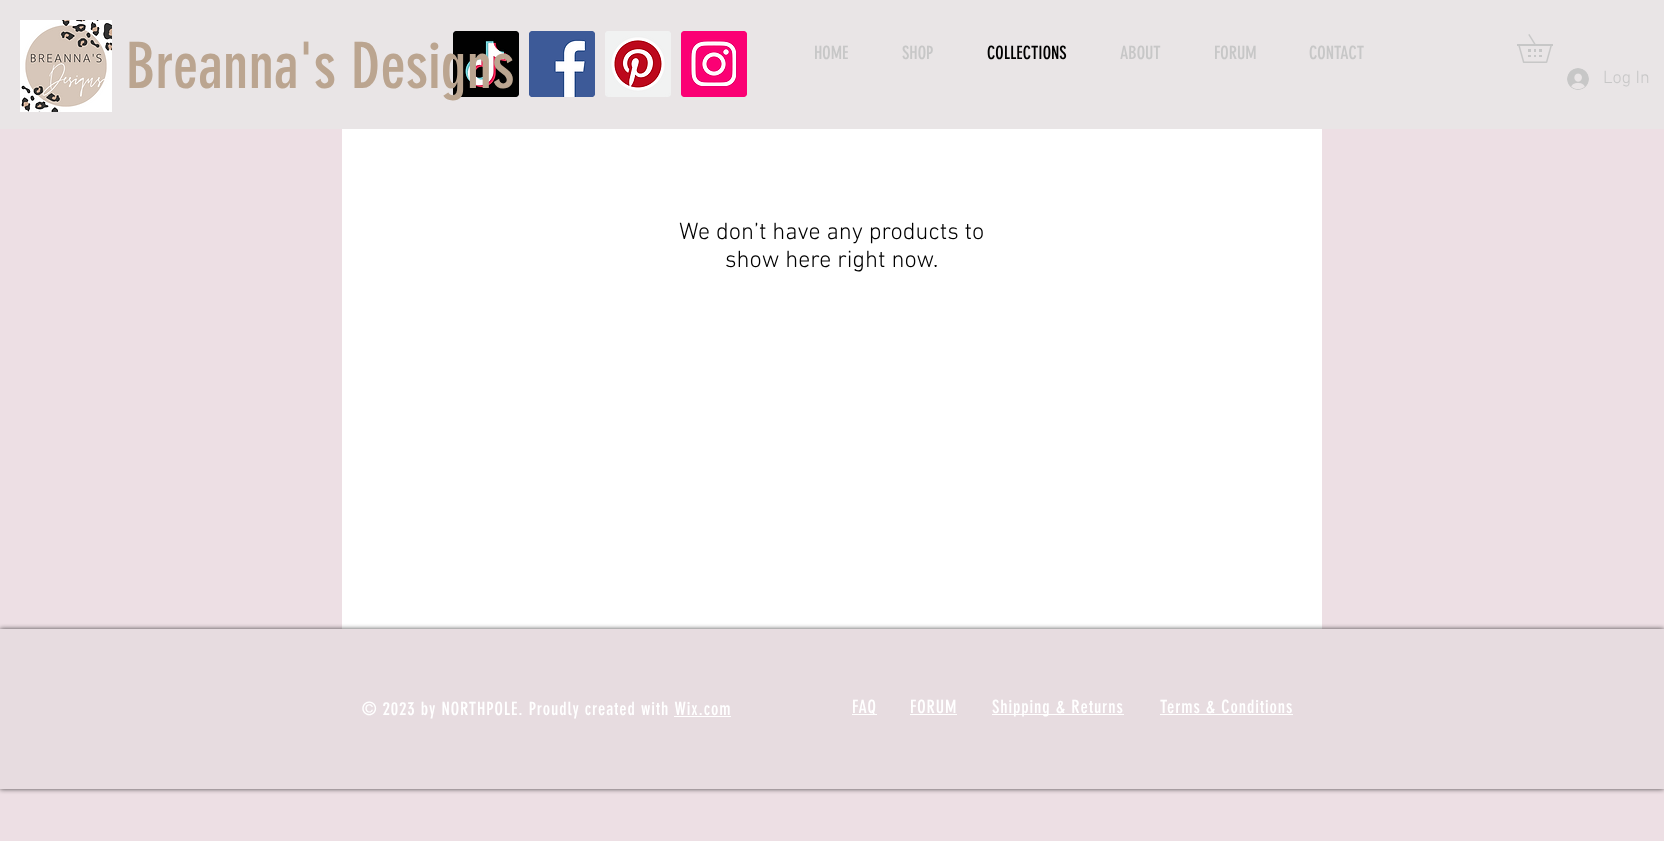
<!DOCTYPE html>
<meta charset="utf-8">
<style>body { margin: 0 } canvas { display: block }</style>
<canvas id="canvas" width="1664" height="841"></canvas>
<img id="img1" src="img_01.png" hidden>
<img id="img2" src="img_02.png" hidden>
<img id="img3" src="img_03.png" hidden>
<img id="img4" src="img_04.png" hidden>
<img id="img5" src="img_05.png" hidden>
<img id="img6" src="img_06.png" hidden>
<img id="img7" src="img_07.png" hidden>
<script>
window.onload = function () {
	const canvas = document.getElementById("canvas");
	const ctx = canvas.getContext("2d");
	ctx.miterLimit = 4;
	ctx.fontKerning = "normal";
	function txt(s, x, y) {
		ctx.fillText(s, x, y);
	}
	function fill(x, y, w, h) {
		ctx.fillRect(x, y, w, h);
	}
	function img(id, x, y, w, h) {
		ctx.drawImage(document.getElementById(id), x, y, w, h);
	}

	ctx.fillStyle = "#EDDFE4";
	fill(0, 0, 1664, 841);
	ctx.fillStyle = "#E9E5E6";
	fill(0, 0, 1664, 129);
	img("img1", 453, 31, 66, 66);
	img("img2", 529, 31, 66, 66);
	img("img3", 605, 31, 66, 66);
	img("img4", 681, 31, 66, 66);
	img("img5", 20, 20, 92, 92);
	img("img6", 1517, 34, 36, 29);
	img("img7", 1567, 68, 22, 22);
	ctx.fillStyle = "#FFFFFF";
	fill(342, 129, 980, 500);
	ctx.fillStyle = "rgba(2, 2, 2, 0.7)";
	ctx.filter = "blur(2.5px)";
	ctx.beginPath();
	ctx.rect(0, 629, 1664, 160);
	ctx.fill();
	ctx.filter = "none";
	ctx.fillStyle = "#E7DCE0";
	fill(0, 629, 1664, 160);
	ctx.fillStyle = "#FFFFFF";
	fill(674, 716, 57, 1);
	fill(852, 714, 25, 1);
	fill(910, 714, 47, 1);
	fill(992, 714, 132, 1);
	fill(1160, 714, 133, 1);
	ctx.font = "63px 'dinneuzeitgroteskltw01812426'";
	ctx.fillStyle = "#BBA590";
	txt("Breanna's Designs", 126, 88);
	ctx.font = "18px 'dinneuzeitgroteskltw01812426'";
	ctx.fillStyle = "#C7C7C7";
	txt("HOME", 814, 59);
	txt("SHOP", 902, 59);
	ctx.fillStyle = "#000000";
	txt("COLLECTIONS", 987, 59);
	ctx.fillStyle = "#C7C7C7";
	txt("ABOUT", 1120, 59);
	txt("FORUM", 1214, 59);
	txt("CONTACT", 1309, 59);
	ctx.font = "300 18px 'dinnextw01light'";
	txt("Log In", 1603, 83);
	ctx.font = "300 24px 'dinnextw01light'";
	ctx.fillStyle = "#000000";
	txt("We don’t have any products to", 679, 239);
	txt("show here right now.", 725, 267);
	ctx.letterSpacing = "0.9px";
	ctx.font = "18px 'dinneuzeitgroteskltw01812426'";
	ctx.fillStyle = "#FFFFFF";
	txt("© 2023 by NORTHPOLE. Proudly created with Wix.com", 362, 715);
	txt("FAQ", 852, 713);
	txt("FORUM", 910, 713);
	txt("Shipping & Returns", 992, 713);
	txt("Terms & Conditions", 1160, 713);
};
</script>
